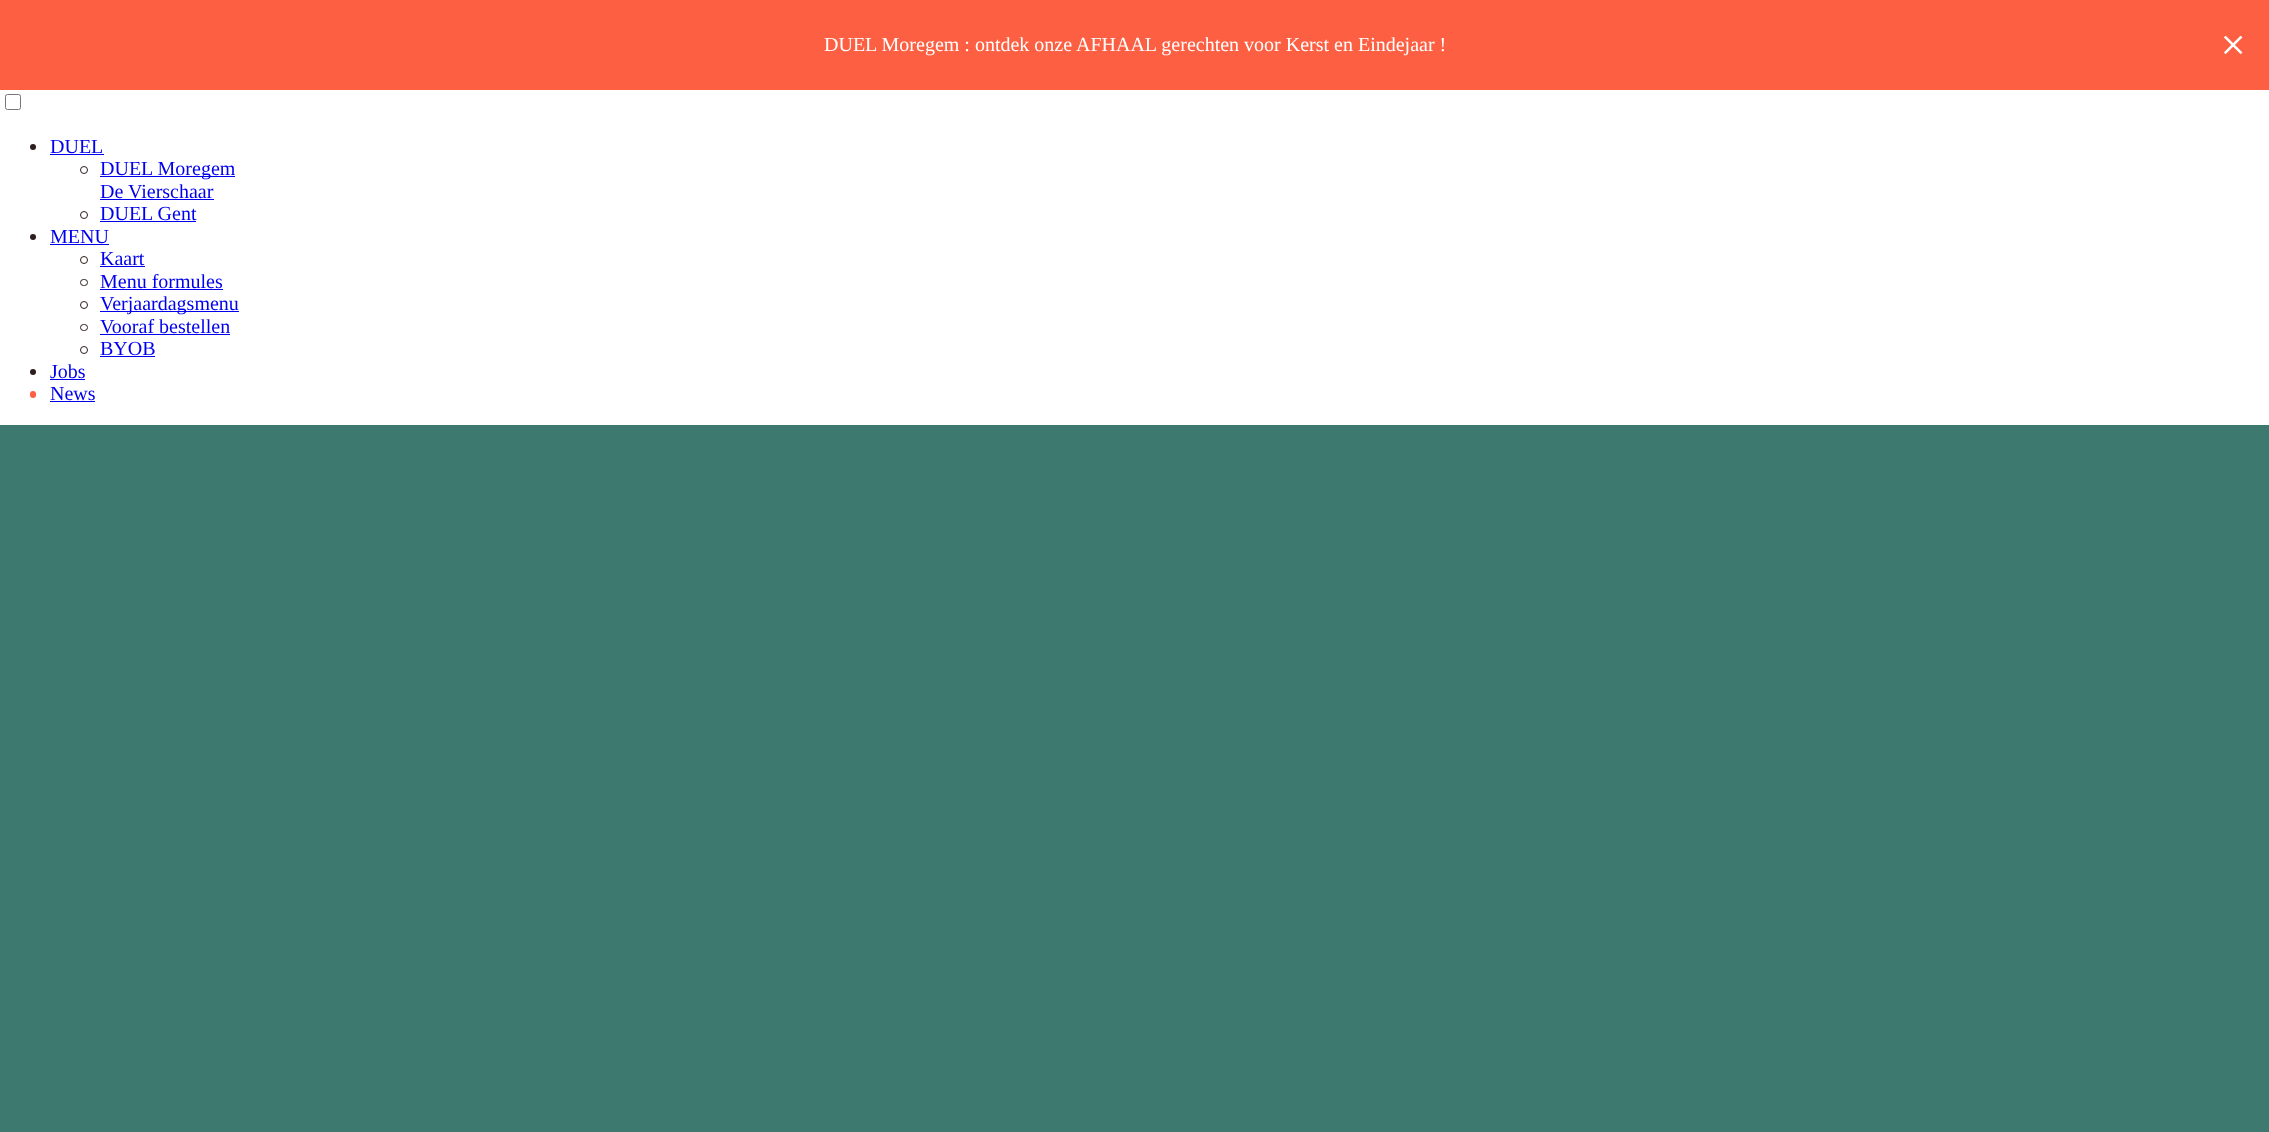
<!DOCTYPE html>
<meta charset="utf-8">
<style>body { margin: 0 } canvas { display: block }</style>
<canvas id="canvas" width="2269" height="1132"></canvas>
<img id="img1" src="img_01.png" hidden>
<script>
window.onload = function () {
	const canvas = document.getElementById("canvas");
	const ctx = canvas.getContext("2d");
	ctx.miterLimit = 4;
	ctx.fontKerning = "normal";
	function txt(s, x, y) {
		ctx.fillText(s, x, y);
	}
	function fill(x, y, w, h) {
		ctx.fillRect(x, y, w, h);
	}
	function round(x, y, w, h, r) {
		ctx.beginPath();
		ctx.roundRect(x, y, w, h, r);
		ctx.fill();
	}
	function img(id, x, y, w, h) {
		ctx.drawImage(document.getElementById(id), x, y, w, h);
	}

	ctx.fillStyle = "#FFFFFF";
	fill(0, 0, 2269, 1132);
	ctx.fillStyle = "#FD5F42";
	fill(0, 0, 2269, 90);
	img("img1", 2224, 36, 19, 19);
	ctx.beginPath();
	ctx.roundRect(5.5, 94.5, 15, 15, 2);
	ctx.strokeStyle = "#767676";
	ctx.stroke();
	ctx.fillStyle = "#2E1E1D";
	ctx.beginPath();
	ctx.arc(33, 147, 3, 0, Math.PI * 2);
	ctx.fill();
	ctx.fillStyle = "#0000EE";
	fill(50, 154, 54, 1);
	ctx.beginPath();
	ctx.arc(84, 170, 3.5, 0, Math.PI * 2);
	ctx.strokeStyle = "#2E1E1D";
	ctx.stroke();
	fill(100, 176, 135, 1);
	fill(100, 199, 114, 1);
	ctx.beginPath();
	ctx.arc(84, 215, 3.5, 0, Math.PI * 2);
	ctx.stroke();
	fill(100, 221, 96, 1);
	ctx.fillStyle = "#2E1E1D";
	ctx.beginPath();
	ctx.arc(33, 237, 3, 0, Math.PI * 2);
	ctx.fill();
	ctx.fillStyle = "#0000EE";
	fill(50, 244, 59, 1);
	ctx.beginPath();
	ctx.arc(84, 260, 3.5, 0, Math.PI * 2);
	ctx.stroke();
	fill(100, 266, 45, 1);
	ctx.beginPath();
	ctx.roundRect(80.5, 279.5, 7, 6, 3);
	ctx.stroke();
	fill(100, 289, 123, 1);
	ctx.beginPath();
	ctx.arc(84, 305, 3.5, 0, Math.PI * 2);
	ctx.stroke();
	fill(100, 311, 139, 1);
	ctx.beginPath();
	ctx.roundRect(80.5, 324.5, 7, 6, 3);
	ctx.stroke();
	fill(100, 334, 130, 1);
	ctx.beginPath();
	ctx.arc(84, 350, 3.5, 0, Math.PI * 2);
	ctx.stroke();
	fill(100, 356, 55, 1);
	ctx.fillStyle = "#2E1E1D";
	ctx.beginPath();
	ctx.arc(33, 372, 3, 0, Math.PI * 2);
	ctx.fill();
	ctx.fillStyle = "#0000EE";
	fill(50, 379, 35, 1);
	ctx.fillStyle = "#FD5F42";
	round(30, 391, 6, 7, 3);
	ctx.fillStyle = "#0000EE";
	fill(50, 401, 45, 1);
	ctx.fillStyle = "#3E796F";
	fill(0, 425, 2269, 707);
	ctx.font = "20px Liberation Serif";
	ctx.fillStyle = "#FFFFFF";
	txt("DUEL Moregem : ontdek onze AFHAAL gerechten voor Kerst en Eindejaar !", 824, 51);
	ctx.fillStyle = "#0000EE";
	txt("DUEL", 50, 153);
	txt("DUEL Moregem", 100, 175);
	txt("De Vierschaar", 100, 198);
	txt("DUEL Gent", 100, 220);
	txt("MENU", 50, 243);
	txt("Kaart", 100, 265);
	txt("Menu formules", 100, 288);
	txt("Verjaardagsmenu", 100, 310);
	txt("Vooraf bestellen", 100, 333);
	txt("BYOB", 100, 355);
	txt("Jobs", 50, 378);
	txt("News", 50, 400);
};
</script>
